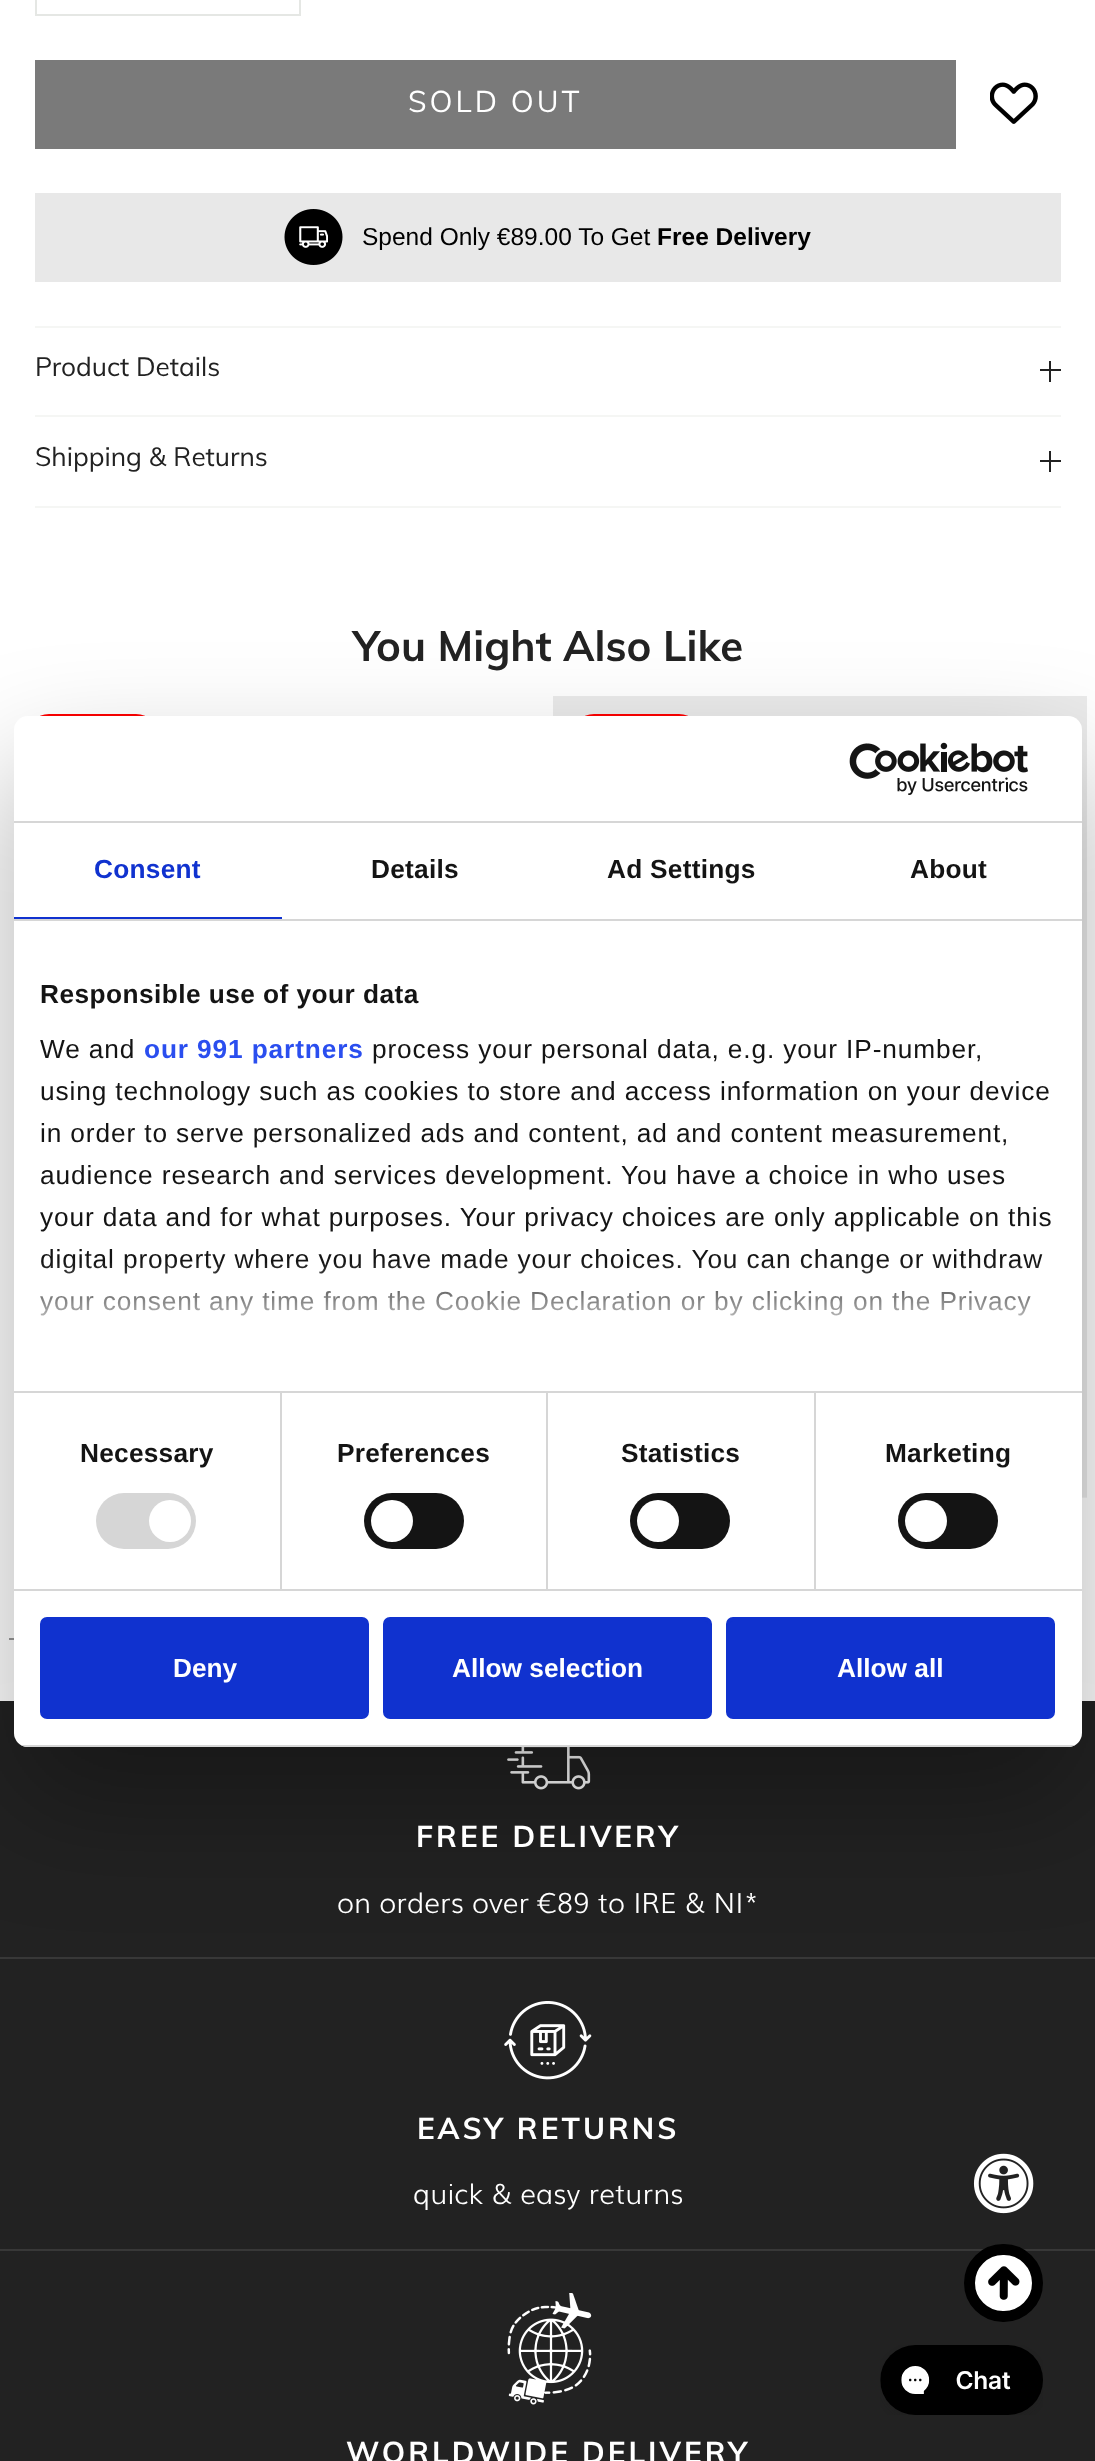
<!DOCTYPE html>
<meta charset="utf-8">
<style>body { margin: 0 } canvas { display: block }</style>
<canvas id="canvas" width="1095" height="2461"></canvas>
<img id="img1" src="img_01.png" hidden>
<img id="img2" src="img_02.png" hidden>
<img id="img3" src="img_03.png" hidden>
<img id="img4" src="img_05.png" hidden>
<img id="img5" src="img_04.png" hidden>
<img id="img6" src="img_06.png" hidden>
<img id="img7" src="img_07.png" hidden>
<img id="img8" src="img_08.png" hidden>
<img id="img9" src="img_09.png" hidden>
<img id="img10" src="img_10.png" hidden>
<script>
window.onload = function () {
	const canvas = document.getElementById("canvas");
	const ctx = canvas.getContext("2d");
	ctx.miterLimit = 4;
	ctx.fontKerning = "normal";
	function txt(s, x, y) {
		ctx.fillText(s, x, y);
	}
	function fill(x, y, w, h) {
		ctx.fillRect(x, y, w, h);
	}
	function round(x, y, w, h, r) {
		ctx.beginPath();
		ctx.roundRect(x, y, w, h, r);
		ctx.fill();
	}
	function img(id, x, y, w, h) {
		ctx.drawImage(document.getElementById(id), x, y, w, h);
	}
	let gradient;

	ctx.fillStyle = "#FFFFFF";
	fill(0, 0, 1095, 2461);
	ctx.strokeStyle = "#E5E7E4";
	ctx.lineWidth = 2;
	ctx.strokeRect(36, -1, 264, 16);
	ctx.fillStyle = "#7A7A7A";
	fill(35, 60, 921, 89);
	img("img1", 990, 82, 48, 42);
	ctx.fillStyle = "#E8E8E8";
	fill(35, 193, 1026, 89);
	img("img2", 284, 209, 59, 56);
	ctx.fillStyle = "#F5F6F4";
	fill(35, 506, 1026, 2);
	fill(35, 326, 1026, 2);
	ctx.fillStyle = "#222222";
	fill(1040, 369, 21, 2);
	fill(1049, 361, 2, 21);
	ctx.fillStyle = "#F5F6F4";
	fill(35, 415, 1026, 2);
	ctx.fillStyle = "#222222";
	fill(1040, 460, 21, 2);
	fill(1049, 451, 2, 21);
	ctx.fillStyle = "#FF0000";
	round(26, 714, 133, 46, 23);
	ctx.fillStyle = "#999999";
	fill(9, 1638, 5, 2);
	img("img3", 553, 696, 534, 802);
	ctx.fillStyle = "#FF0000";
	round(571, 714, 131, 46, 23);
	ctx.fillStyle = "#222222";
	fill(0, 1701, 1095, 760);
	img("img4", 507, 1747, 84, 43);
	ctx.fillStyle = "#383838";
	fill(0, 1957, 1095, 2);
	ctx.fillStyle = "rgba(0, 0, 0, 0.3)";
	ctx.filter = "blur(59.5px)";
	ctx.beginPath();
	ctx.roundRect(14, 772, 1068, 1031, 14);
	ctx.fill();
	ctx.filter = "none";
	ctx.fillStyle = "#FFFFFF";
	round(14, 716, 1068, 1031, 14);
	ctx.fillStyle = "#D6D6D6";
	fill(14, 821, 1068, 2);
	img("img5", 849, 742, 179, 53);
	fill(14, 919, 1068, 2);
	ctx.fillStyle = "#1032CF";
	fill(14, 917, 268, 2);
	ctx.fillStyle = "#D6D6D6";
	fill(14, 1391, 1068, 2);
	fill(14, 1589, 1068, 2);
	fill(280, 1393, 2, 196);
	round(96, 1493, 100, 56, 28);
	ctx.fillStyle = "#FFFFFF";
	ctx.beginPath();
	ctx.arc(170, 1521, 21, 0, Math.PI * 2);
	ctx.fill();
	ctx.fillStyle = "#D6D6D6";
	fill(546, 1393, 2, 196);
	ctx.fillStyle = "#141414";
	round(364, 1493, 100, 56, 28);
	ctx.fillStyle = "#FFFFFF";
	ctx.beginPath();
	ctx.arc(392, 1521, 21, 0, Math.PI * 2);
	ctx.fill();
	ctx.fillStyle = "#D6D6D6";
	fill(814, 1393, 2, 196);
	ctx.fillStyle = "#141414";
	round(630, 1493, 100, 56, 28);
	ctx.fillStyle = "#FFFFFF";
	ctx.beginPath();
	ctx.arc(658, 1521, 21, 0, Math.PI * 2);
	ctx.fill();
	ctx.fillStyle = "#141414";
	round(898, 1493, 100, 56, 28);
	ctx.fillStyle = "#FFFFFF";
	ctx.beginPath();
	ctx.arc(926, 1521, 21, 0, Math.PI * 2);
	ctx.fill();
	ctx.save();
	ctx.beginPath();
	ctx.roundRect(14, 716, 1068, 1031, 14);
	ctx.clip();
	ctx.fillStyle = "#D6D6D6";
	fill(14, 1745, 1068, 2);
	ctx.restore();
	ctx.fillStyle = "#1032CF";
	ctx.beginPath();
	ctx.roundRect(42, 1619, 325, 98, 5);
	ctx.fill();
	ctx.strokeStyle = "#1032CF";
	ctx.lineWidth = 4;
	ctx.stroke();
	ctx.beginPath();
	ctx.roundRect(385, 1619, 325, 98, 5);
	ctx.fill();
	ctx.stroke();
	ctx.beginPath();
	ctx.roundRect(728, 1619, 325, 98, 5);
	ctx.fill();
	ctx.stroke();
	img("img6", 504, 2001, 88, 79);
	ctx.fillStyle = "#383838";
	fill(0, 2249, 1095, 2);
	img("img7", 507, 2293, 85, 112);
	img("img8", 973, 2153, 61, 61);
	ctx.fillStyle = "#FFFFFF";
	ctx.beginPath();
	ctx.roundRect(969.5, 2249.5, 68, 67, 33.5);
	ctx.fill();
	ctx.strokeStyle = "#000000";
	ctx.lineWidth = 11;
	ctx.stroke();
	img("img9", 988, 2266, 32, 34);
	img("img10", 880, 2345, 163, 70);
	ctx.letterSpacing = "3px";
	ctx.font = "29.75px Muli";
	txt("SOLD OUT", 408, 112);
	ctx.letterSpacing = "0px";
	ctx.font = "24.5px Liberation Sans";
	ctx.fillStyle = "#000000";
	txt("Spend Only €89.00 To Get", 362, 245);
	ctx.font = "bold 24.5px Liberation Sans";
	txt("Free Delivery", 657, 245);
	ctx.font = "26.25px Muli";
	ctx.fillStyle = "#222222";
	txt("Product Details", 35, 376);
	txt("Shipping & Returns", 35, 466);
	ctx.font = "bold 42px Muli";
	txt("You Might Also Like", 353, 661);
	ctx.letterSpacing = "0.25px";
	ctx.font = "bold 26.25px Liberation Sans";
	ctx.fillStyle = "#1032CF";
	txt("Consent", 94, 878);
	ctx.fillStyle = "#141414";
	txt("Details", 371, 878);
	txt("Ad Settings", 607, 878);
	txt("About", 910, 878);
	ctx.letterSpacing = "0.45px";
	txt("Responsible use of your data", 40, 1003);
	ctx.letterSpacing = "0.88px";
	ctx.font = "26.25px Liberation Sans";
	txt("We and", 40, 1058);
	ctx.font = "bold 26.25px Liberation Sans";
	ctx.fillStyle = "#2A4EEF";
	txt("our 991 partners", 144, 1058);
	ctx.font = "26.25px Liberation Sans";
	ctx.fillStyle = "#141414";
	txt("process your personal data, e.g. your IP-number,", 372, 1058);
	txt("using technology such as cookies to store and access information on your device", 40, 1100);
	txt("in order to serve personalized ads and content, ad and content measurement,", 40, 1142);
	txt("audience research and services development. You have a choice in who uses", 40, 1184);
	txt("your data and for what purposes. Your privacy choices are only applicable on this", 40, 1226);
	txt("digital property where you have made your choices. You can change or withdraw", 40, 1268);
	txt("your consent any time from the Cookie Declaration or by clicking on the Privacy", 40, 1310);
	gradient = ctx.createLinearGradient(536, 1392, 536, 1261);
	gradient.addColorStop(0, "#FFFFFF");
	gradient.addColorStop(0.5, "rgba(255, 255, 255, 0.8)");
	gradient.addColorStop(1, "rgba(255, 255, 255, 0)");
	ctx.fillStyle = gradient;
	fill(40, 1263, 1000, 53);
	ctx.letterSpacing = "0.25px";
	ctx.font = "bold 26.25px Liberation Sans";
	ctx.fillStyle = "#141414";
	txt("Necessary", 80, 1462);
	txt("Preferences", 337, 1462);
	txt("Statistics", 621, 1462);
	txt("Marketing", 885, 1462);
	ctx.letterSpacing = "0px";
	ctx.fillStyle = "#FFFFFF";
	txt("Deny", 173, 1677);
	txt("Allow selection", 452, 1677);
	txt("Allow all", 837, 1677);
	ctx.letterSpacing = "3px";
	ctx.font = "bold 29.75px Muli";
	txt("FREE DELIVERY", 416, 1847);
	ctx.letterSpacing = "0px";
	ctx.font = "300 28px Muli";
	txt("on orders over €89 to IRE & NI*", 337, 1913);
	ctx.letterSpacing = "3px";
	ctx.font = "bold 29.75px Muli";
	txt("EASY RETURNS", 417, 2139);
	ctx.letterSpacing = "0px";
	ctx.font = "300 28px Muli";
	txt("quick & easy returns", 413, 2204);
	ctx.letterSpacing = "3px";
	ctx.font = "bold 29.75px Muli";
	txt("WORLDWIDE DELIVERY", 346, 2463);
};
</script>
